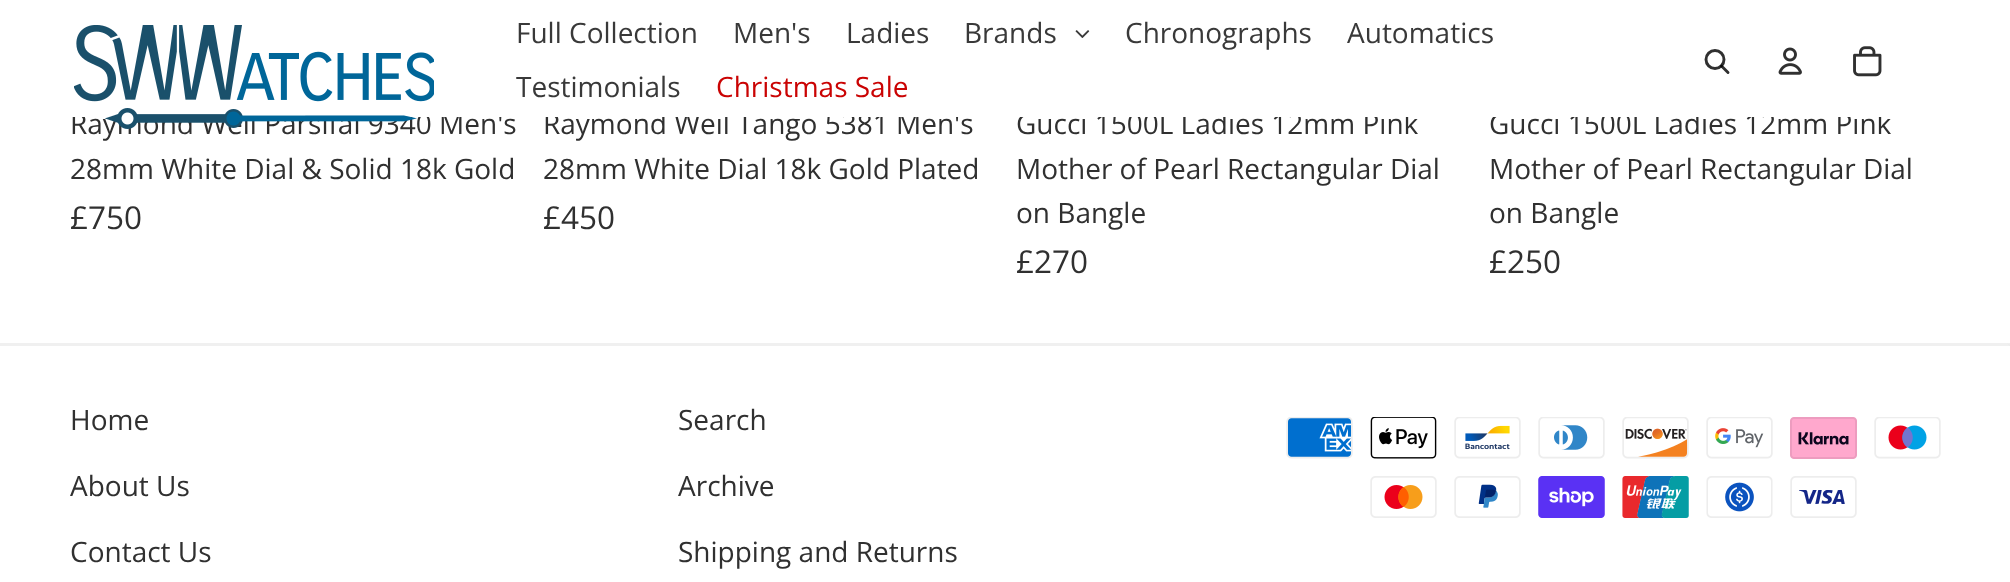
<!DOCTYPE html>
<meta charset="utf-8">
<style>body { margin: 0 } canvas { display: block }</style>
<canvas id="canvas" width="2010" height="582"></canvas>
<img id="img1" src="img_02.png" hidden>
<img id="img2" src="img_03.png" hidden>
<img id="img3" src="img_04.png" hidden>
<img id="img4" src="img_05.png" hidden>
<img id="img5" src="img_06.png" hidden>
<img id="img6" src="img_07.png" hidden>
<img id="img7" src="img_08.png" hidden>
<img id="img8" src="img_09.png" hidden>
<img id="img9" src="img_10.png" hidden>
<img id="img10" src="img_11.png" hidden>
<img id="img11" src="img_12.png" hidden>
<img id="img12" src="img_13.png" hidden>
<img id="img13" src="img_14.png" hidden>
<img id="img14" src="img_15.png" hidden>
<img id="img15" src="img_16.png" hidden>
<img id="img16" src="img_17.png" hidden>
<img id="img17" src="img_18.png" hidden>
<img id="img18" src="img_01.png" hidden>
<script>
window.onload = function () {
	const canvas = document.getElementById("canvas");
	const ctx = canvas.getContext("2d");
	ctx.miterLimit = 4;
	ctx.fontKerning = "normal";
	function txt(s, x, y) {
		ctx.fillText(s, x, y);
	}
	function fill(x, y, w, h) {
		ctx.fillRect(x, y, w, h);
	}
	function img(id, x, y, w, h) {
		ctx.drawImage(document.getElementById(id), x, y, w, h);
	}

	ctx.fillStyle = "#FFFFFF";
	fill(0, 0, 2010, 582);
	img("img1", 1075, 30, 15, 8);
	ctx.beginPath();
	ctx.arc(1715, 59.5, 9, 0, Math.PI * 2);
	ctx.strokeStyle = "#303030";
	ctx.lineWidth = 2.9;
	ctx.stroke();
	ctx.beginPath();
	ctx.moveTo(1721.5, 66);
	ctx.lineTo(1728, 72.5);
	ctx.strokeStyle = "rgba(0, 0, 0, 0.81)";
	ctx.lineCap = "round";
	ctx.lineJoin = "round";
	ctx.stroke();
	img("img2", 1778, 47, 24, 28);
	img("img3", 1853, 46, 29, 31);
	ctx.fillStyle = "#F0F0F0";
	ctx.beginPath();
	ctx.moveTo(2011, 343);
	ctx.lineTo(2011, 346.5);
	ctx.lineTo(2007, 343);
	ctx.closePath();
	ctx.fill();
	ctx.fillStyle = "rgba(0, 0, 0, 0.06)";
	ctx.beginPath();
	ctx.moveTo(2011, 346);
	ctx.lineTo(0, 346);
	ctx.lineTo(0, 343);
	ctx.lineTo(2007, 343);
	ctx.closePath();
	ctx.fill();
	img("img4", 1286, 417, 67, 42);
	img("img5", 1370, 417, 67, 42);
	img("img6", 1454, 417, 67, 42);
	img("img7", 1538, 417, 67, 42);
	img("img8", 1622, 417, 67, 42);
	img("img9", 1706, 417, 67, 42);
	img("img10", 1790, 417, 67, 42);
	img("img11", 1874, 417, 67, 42);
	img("img12", 1370, 476, 67, 42);
	img("img13", 1454, 476, 67, 42);
	img("img14", 1538, 476, 67, 42);
	img("img15", 1622, 476, 67, 42);
	img("img16", 1706, 476, 67, 42);
	img("img17", 1790, 476, 67, 42);
	ctx.font = "28px Open Sans";
	ctx.fillStyle = "#393939";
	txt("Full Collection", 516, 43);
	txt("Men's", 733, 43);
	txt("Ladies", 846, 43);
	txt("Brands", 964, 43);
	txt("Chronographs", 1125, 43);
	txt("Automatics", 1347, 43);
	txt("Testimonials", 516, 97);
	ctx.fillStyle = "#CA0303";
	txt("Christmas Sale", 716, 97);
	ctx.fillStyle = "#303030";
	txt("Raymond Weil Parsifal 9340 Men's", 70, 134);
	txt("28mm White Dial & Solid 18k Gold", 70, 179);
	ctx.font = "31.5px Open Sans";
	txt("£750", 70, 229);
	ctx.font = "28px Open Sans";
	txt("Raymond Weil Tango 5381 Men's", 543, 134);
	txt("28mm White Dial 18k Gold Plated", 543, 179);
	ctx.font = "31.5px Open Sans";
	txt("£450", 543, 229);
	ctx.font = "28px Open Sans";
	txt("Gucci 1500L Ladies 12mm Pink", 1016, 134);
	txt("Mother of Pearl Rectangular Dial", 1016, 179);
	txt("on Bangle", 1016, 223);
	ctx.font = "31.5px Open Sans";
	txt("£270", 1016, 273);
	ctx.font = "28px Open Sans";
	txt("Gucci 1500L Ladies 12mm Pink", 1489, 134);
	ctx.fillStyle = "#FFFFFF";
	fill(72, 112, 1810, 5);
	img("img18", 74, 25, 360, 104);
	ctx.fillStyle = "#303030";
	txt("Mother of Pearl Rectangular Dial", 1489, 179);
	txt("on Bangle", 1489, 223);
	ctx.font = "31.5px Open Sans";
	txt("£250", 1489, 273);
	ctx.font = "28px Open Sans";
	txt("Home", 70, 430);
	txt("About Us", 70, 496);
	txt("Contact Us", 70, 562);
	txt("Search", 678, 430);
	txt("Archive", 678, 496);
	txt("Shipping and Returns", 678, 562);
};
</script>
